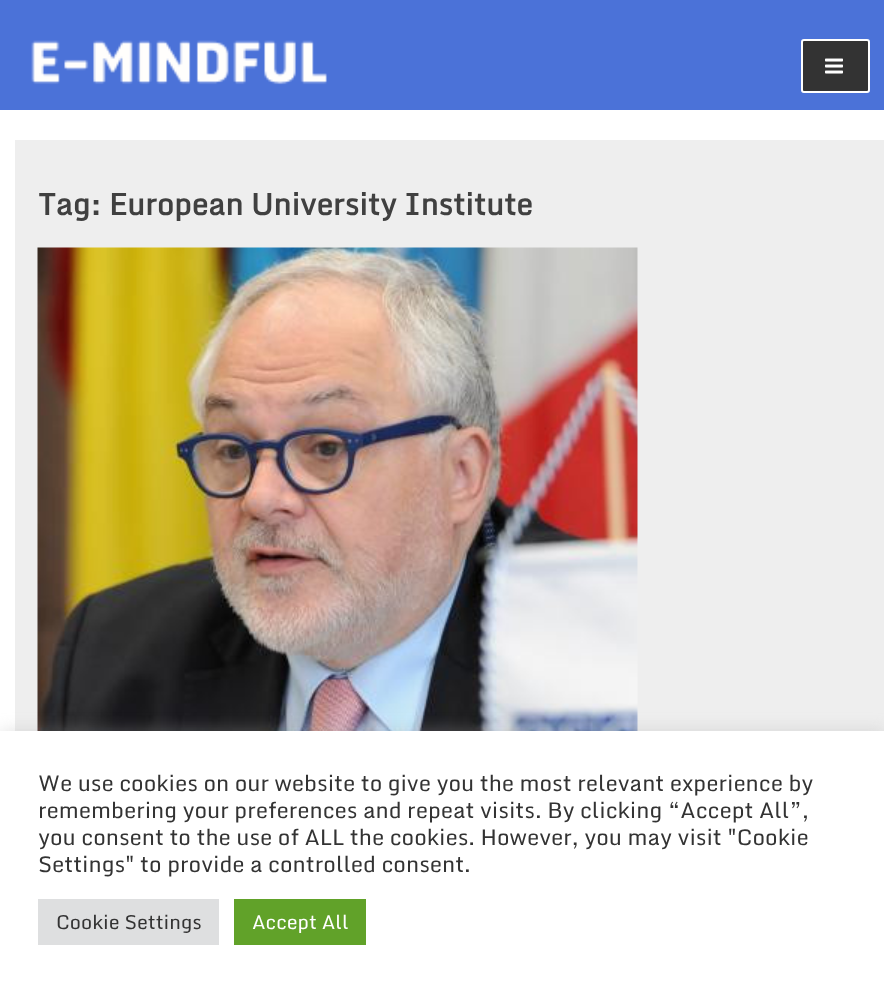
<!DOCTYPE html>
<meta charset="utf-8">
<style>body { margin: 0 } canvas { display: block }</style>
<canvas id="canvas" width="884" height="990"></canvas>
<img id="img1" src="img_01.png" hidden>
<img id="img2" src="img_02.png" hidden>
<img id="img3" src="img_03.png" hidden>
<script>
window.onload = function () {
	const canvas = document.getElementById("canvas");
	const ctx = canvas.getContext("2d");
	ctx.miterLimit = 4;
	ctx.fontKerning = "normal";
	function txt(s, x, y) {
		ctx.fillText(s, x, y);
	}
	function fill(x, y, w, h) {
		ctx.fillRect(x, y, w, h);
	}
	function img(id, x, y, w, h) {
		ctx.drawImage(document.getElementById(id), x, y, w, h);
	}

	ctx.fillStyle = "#FFFFFF";
	fill(0, 0, 884, 990);
	ctx.fillStyle = "#4B72D8";
	fill(0, 0, 884, 110);
	img("img1", 31, 40, 296, 45);
	ctx.fillStyle = "#333333";
	ctx.beginPath();
	ctx.roundRect(802, 40, 67, 52, 2);
	ctx.fill();
	ctx.strokeStyle = "#FFFFFF";
	ctx.lineWidth = 2;
	ctx.stroke();
	img("img2", 825, 58, 18, 16);
	ctx.fillStyle = "#EEEEEE";
	fill(15, 140, 869, 591);
	img("img3", 37, 247, 601, 484);
	ctx.fillStyle = "rgba(172, 171, 171, 0.3)";
	ctx.filter = "blur(7.5px)";
	ctx.beginPath();
	ctx.rect(0, 729, 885, 260);
	ctx.fill();
	ctx.filter = "none";
	ctx.fillStyle = "#FFFFFF";
	fill(0, 731, 884, 259);
	ctx.fillStyle = "#DEDFE0";
	fill(38, 899, 181, 46);
	ctx.fillStyle = "#61A229";
	fill(234, 899, 132, 46);
	ctx.font = "bold 30px Monda";
	ctx.fillStyle = "#404040";
	txt("Tag: European University Institute", 38, 215);
	ctx.font = "22px Monda";
	ctx.fillStyle = "#333333";
	txt("We use cookies on our website to give you the most relevant experience by", 38, 791);
	txt("remembering your preferences and repeat visits. By clicking “Accept All”,", 38, 818);
	txt("you consent to the use of ALL the cookies. However, you may visit \"Cookie", 38, 845);
	txt("Settings\" to provide a controlled consent.", 38, 872);
	ctx.font = "19.5px Monda";
	txt("Cookie Settings", 56, 929);
	ctx.fillStyle = "#FFFFFF";
	txt("Accept All", 252, 929);
};
</script>
